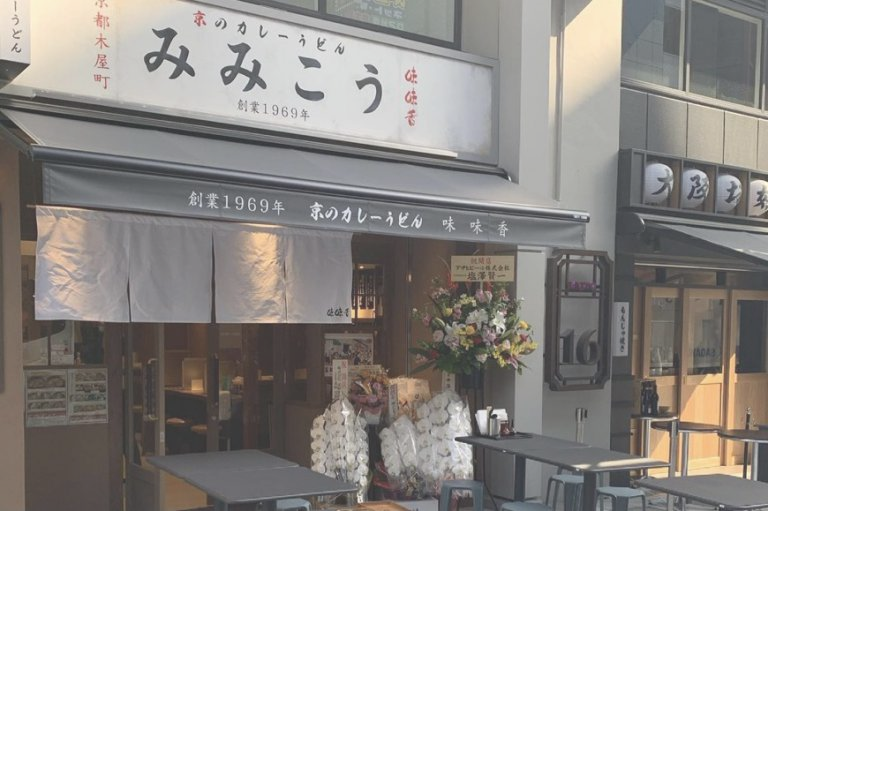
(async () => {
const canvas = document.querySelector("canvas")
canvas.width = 877
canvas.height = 782
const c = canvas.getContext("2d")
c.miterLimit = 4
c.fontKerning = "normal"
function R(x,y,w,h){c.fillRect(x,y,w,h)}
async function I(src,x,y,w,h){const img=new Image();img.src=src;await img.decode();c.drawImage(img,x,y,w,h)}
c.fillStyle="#fff"
R(0,0,877,782)
await I("1.png",0,0,768,511)
})()
